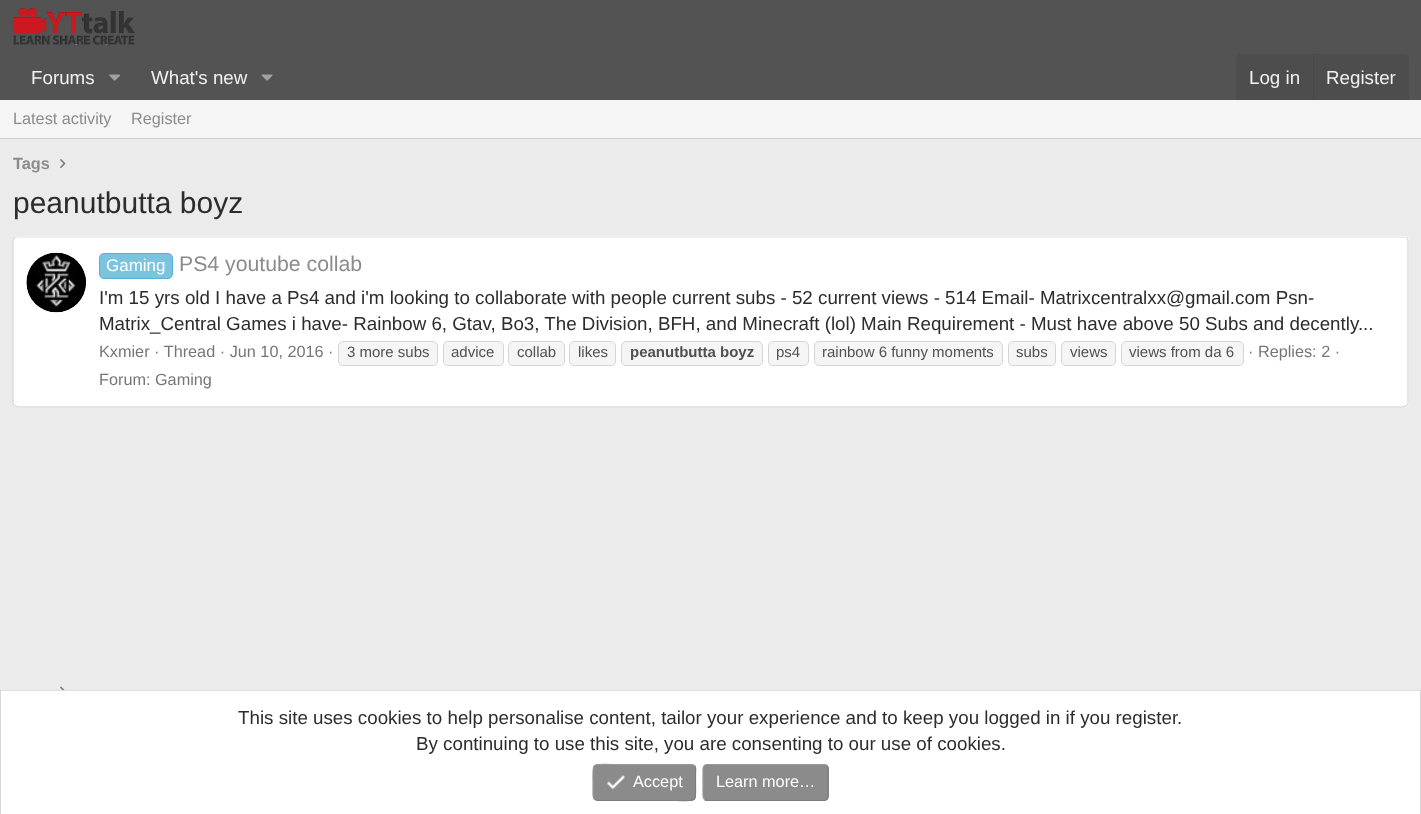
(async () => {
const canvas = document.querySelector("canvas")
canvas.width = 1421
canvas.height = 814
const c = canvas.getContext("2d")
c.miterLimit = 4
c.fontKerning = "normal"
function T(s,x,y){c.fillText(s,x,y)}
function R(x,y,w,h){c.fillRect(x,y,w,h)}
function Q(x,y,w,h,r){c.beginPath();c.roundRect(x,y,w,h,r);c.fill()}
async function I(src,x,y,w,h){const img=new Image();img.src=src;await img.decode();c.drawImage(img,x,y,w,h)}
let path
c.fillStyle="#ebebeb"
R(0,0,1421,814)
c.fillStyle="#535353"
R(0,0,1421,100)
await I("1.png",13,8,122,38)
c.font="18.75px Liberation Sans"
c.fillStyle="#f0f0f0"
T("Forums",31,84)
await I("2.png",109,74,11,7)
T("What's new",151,84)
await I("3.png",261,74,12,7)
c.fillStyle="#4d4d4d"
c.beginPath()
c.roundRect(1236,54,173,46,[5,5,0,0])
c.fill()
c.fillStyle="#f0f0f0"
T("Log in",1249,84)
c.fillStyle="#484848"
R(1313,54,1,46)
c.fillStyle="#f0f0f0"
T("Register",1326,84)
c.fillStyle="#f5f5f5"
R(0,100,1421,38)
c.fillStyle="#ccc"
R(0,138,1421,1)
c.font="16.25px Liberation Sans"
c.fillStyle="#8b8b8b"
T("Latest activity",13,124)
T("Register",131,124)
c.font="bold 16.25px Liberation Sans"
T("Tags",13,169)
await I("4.png",60,159,6,9)
c.font="30px Liberation Sans"
c.fillStyle="#2c2c2c"
T("peanutbutta boyz",13,213)
c.fillStyle="#fff"
Q(13,236,1396,172,5)
path = new Path2D("M14.5 238l3-1h1386.5l3 1")
c.strokeStyle="#e0e0e0"
c.lineWidth=1.2
c.stroke(path)
path = new Path2D("M1407 238c.5 1 1 2 1 3v161.5c0 1-.5 2.5-1 3")
c.strokeStyle="#d6d6d6"
c.stroke(path)
path = new Path2D("M1407 405.5l-3 1.5h-1386.5l-3-1.5")
c.strokeStyle="#ccc"
c.stroke(path)
path = new Path2D("M14.5 405.5c-1-.5-1.5-2-1.5-3v-161.5c0-1 .5-2 1.5-3")
c.strokeStyle="#d6d6d6"
c.stroke(path)
await I("5.png",26,252,60,61)
c.fillStyle="#7cc3e0"
c.beginPath()
c.roundRect(99.5,253.5,73,25,4.5)
c.fill()
c.strokeStyle="#53b0d6"
c.lineWidth=1
c.stroke()
c.font="17px Liberation Sans"
c.fillStyle="#fff"
T("Gaming",106,271)
c.font="21.25px Liberation Sans"
c.fillStyle="#8b8b8b"
T("PS4 youtube collab",179,271)
c.font="18.75px Liberation Sans"
c.fillStyle="#2c2c2c"
T("I'm 15 yrs old I have a Ps4 and i'm looking to collaborate with people current subs - 52 current views - 514 Email- Matrixcentralxx@gmail.com Psn-",99,304)
T("Matrix_Central Games i have- Rainbow 6, Gtav, Bo3, The Division, BFH, and Minecraft (lol) Main Requirement - Must have above 50 Subs and decently...",99,330)
c.font="16.25px Liberation Sans"
c.fillStyle="#767676"
T("Kxmier · Thread · Jun 10, 2016 ·",99,357)
c.fillStyle="#f5f5f5"
c.beginPath()
c.roundRect(338.5,341.5,99,24,4.5)
c.fill()
c.strokeStyle="#d6d6d6"
c.stroke()
c.font="15px Liberation Sans"
c.fillStyle="#515151"
T("3 more subs",347,357)
c.fillStyle="#f5f5f5"
c.beginPath()
c.roundRect(443.5,341.5,60,24,4.5)
c.fill()
c.stroke()
c.fillStyle="#515151"
T("advice",451,357)
c.fillStyle="#f5f5f5"
c.beginPath()
c.roundRect(508.5,341.5,56,24,4.5)
c.fill()
c.stroke()
c.fillStyle="#515151"
T("collab",517,357)
c.fillStyle="#f5f5f5"
c.beginPath()
c.roundRect(569.5,341.5,46,24,4.5)
c.fill()
c.stroke()
c.fillStyle="#515151"
T("likes",578,357)
c.fillStyle="#f5f5f5"
c.beginPath()
c.roundRect(621.5,341.5,141,24,4.5)
c.fill()
c.stroke()
c.font="bold 15px Liberation Sans"
c.fillStyle="#515151"
T("peanutbutta boyz",630,357)
c.fillStyle="#f5f5f5"
c.beginPath()
c.roundRect(768.5,341.5,40,24,4.5)
c.fill()
c.stroke()
c.font="15px Liberation Sans"
c.fillStyle="#515151"
T("ps4",776,357)
c.fillStyle="#f5f5f5"
c.beginPath()
c.roundRect(814.5,341.5,188,24,4.5)
c.fill()
c.stroke()
c.fillStyle="#515151"
T("rainbow 6 funny moments",822,357)
c.fillStyle="#f5f5f5"
c.beginPath()
c.roundRect(1008.5,341.5,47,24,4.5)
c.fill()
c.stroke()
c.fillStyle="#515151"
T("subs",1016,357)
c.fillStyle="#f5f5f5"
c.beginPath()
c.roundRect(1061.5,341.5,54,24,4.5)
c.fill()
c.stroke()
c.fillStyle="#515151"
T("views",1070,357)
c.fillStyle="#f5f5f5"
c.beginPath()
c.roundRect(1121.5,341.5,122,24,4.5)
c.fill()
c.stroke()
c.fillStyle="#515151"
T("views from da 6",1129,357)
c.font="16.25px Liberation Sans"
c.fillStyle="#767676"
T("· Replies: 2 ·",1248,357)
T("Forum: Gaming",99,385)
await I("6.png",60,686,5,4)
c.fillStyle="#fff"
R(1,691,1419,123)
c.fillStyle="#e0e0e0"
R(0,690,1421,1)
c.fillStyle="#d6d6d6"
R(1420,690,1,124)
R(0,690,1,124)
c.font="18.75px Liberation Sans"
c.fillStyle="#2c2c2c"
T("This site uses cookies to help personalise content, tailor your experience and to keep you logged in if you register.",238,724)
T("By continuing to use this site, you are consenting to our use of cookies.",416,750)
c.fillStyle="#8b8b8b"
Q(593,764,103,37,5)
path = new Path2D("M694.5 765.5c2 2 1 5.5 1 8v9c0 21.5 3 18-20 18h-78l-3-1")
c.strokeStyle="#7e7e7e"
c.lineWidth=1.2
c.stroke(path)
path = new Path2D("M594.5 799.5c-2-2-1.5-5.5-1.5-8v-9c0-21.5-2.5-18 20-18h78l3.5 1")
c.strokeStyle="#989898"
c.stroke(path)
await I("7.png",607,775,19,15)
c.font="16.25px Liberation Sans"
c.fillStyle="#fff"
T("Accept",633,787)
c.fillStyle="#8b8b8b"
Q(703,764,126,37,5)
path = new Path2D("M827 765.5c.5 1 1 2 1 3.5v27c0 1.5-.5 2.5-1 3.5c-1 .5-2 1-3 1h-116.5c-1 0-2.5-.5-3-1")
c.strokeStyle="#7e7e7e"
c.stroke(path)
path = new Path2D("M704.5 799.5c-1-1-1.5-2-1.5-3.5v-27c0-1.5 .5-2.5 1.5-3.5c.5-.5 2-1 3-1h116.5c1 0 2 .5 3 1")
c.strokeStyle="#989898"
c.stroke(path)
c.fillStyle="#fff"
T("Learn more…",716,787)
})()
